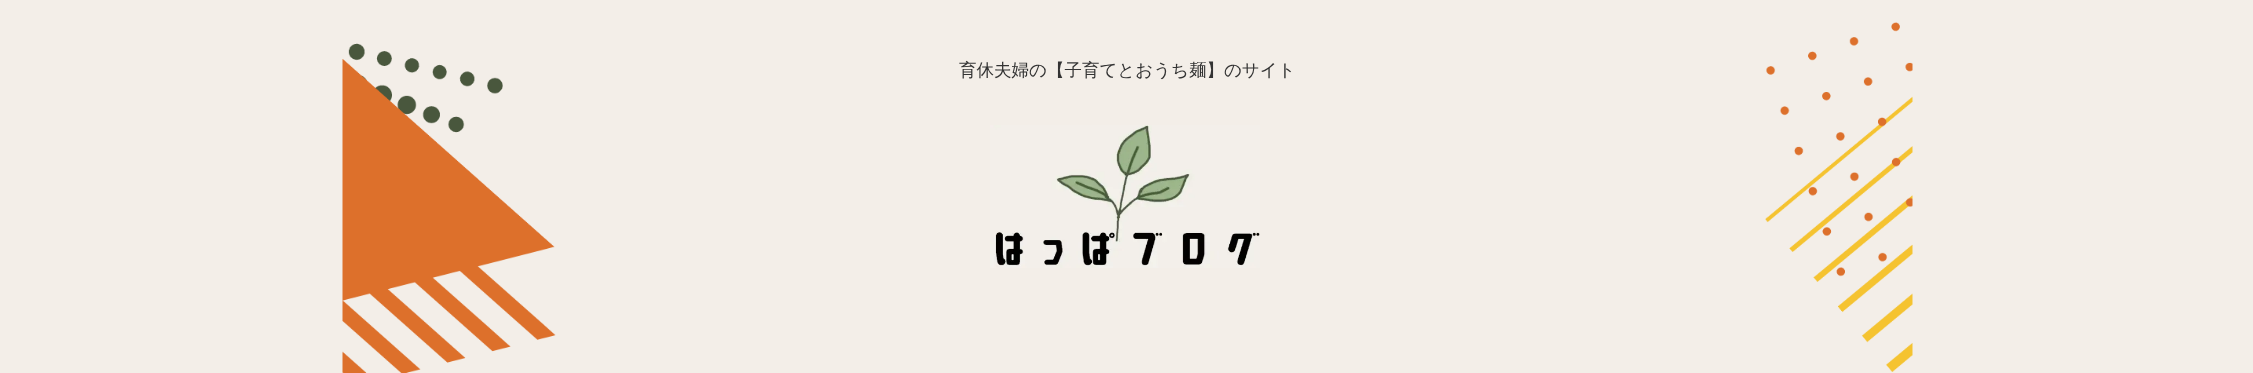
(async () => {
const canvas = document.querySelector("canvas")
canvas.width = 2253
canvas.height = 373
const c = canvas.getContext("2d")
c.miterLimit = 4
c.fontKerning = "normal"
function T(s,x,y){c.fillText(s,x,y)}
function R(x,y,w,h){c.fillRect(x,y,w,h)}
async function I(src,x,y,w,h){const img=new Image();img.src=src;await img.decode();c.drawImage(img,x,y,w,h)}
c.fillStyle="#f3eee8"
R(0,0,2253,373)
await I("1.png",342,22,1571,351)
c.font="500 17.5px WenQuanYi Zen Hei"
c.fillStyle="#333"
T("育休夫婦の【子育てとおうち麺】のサイト",959,76)
await I("2.png",990,125,270,143)
})()
